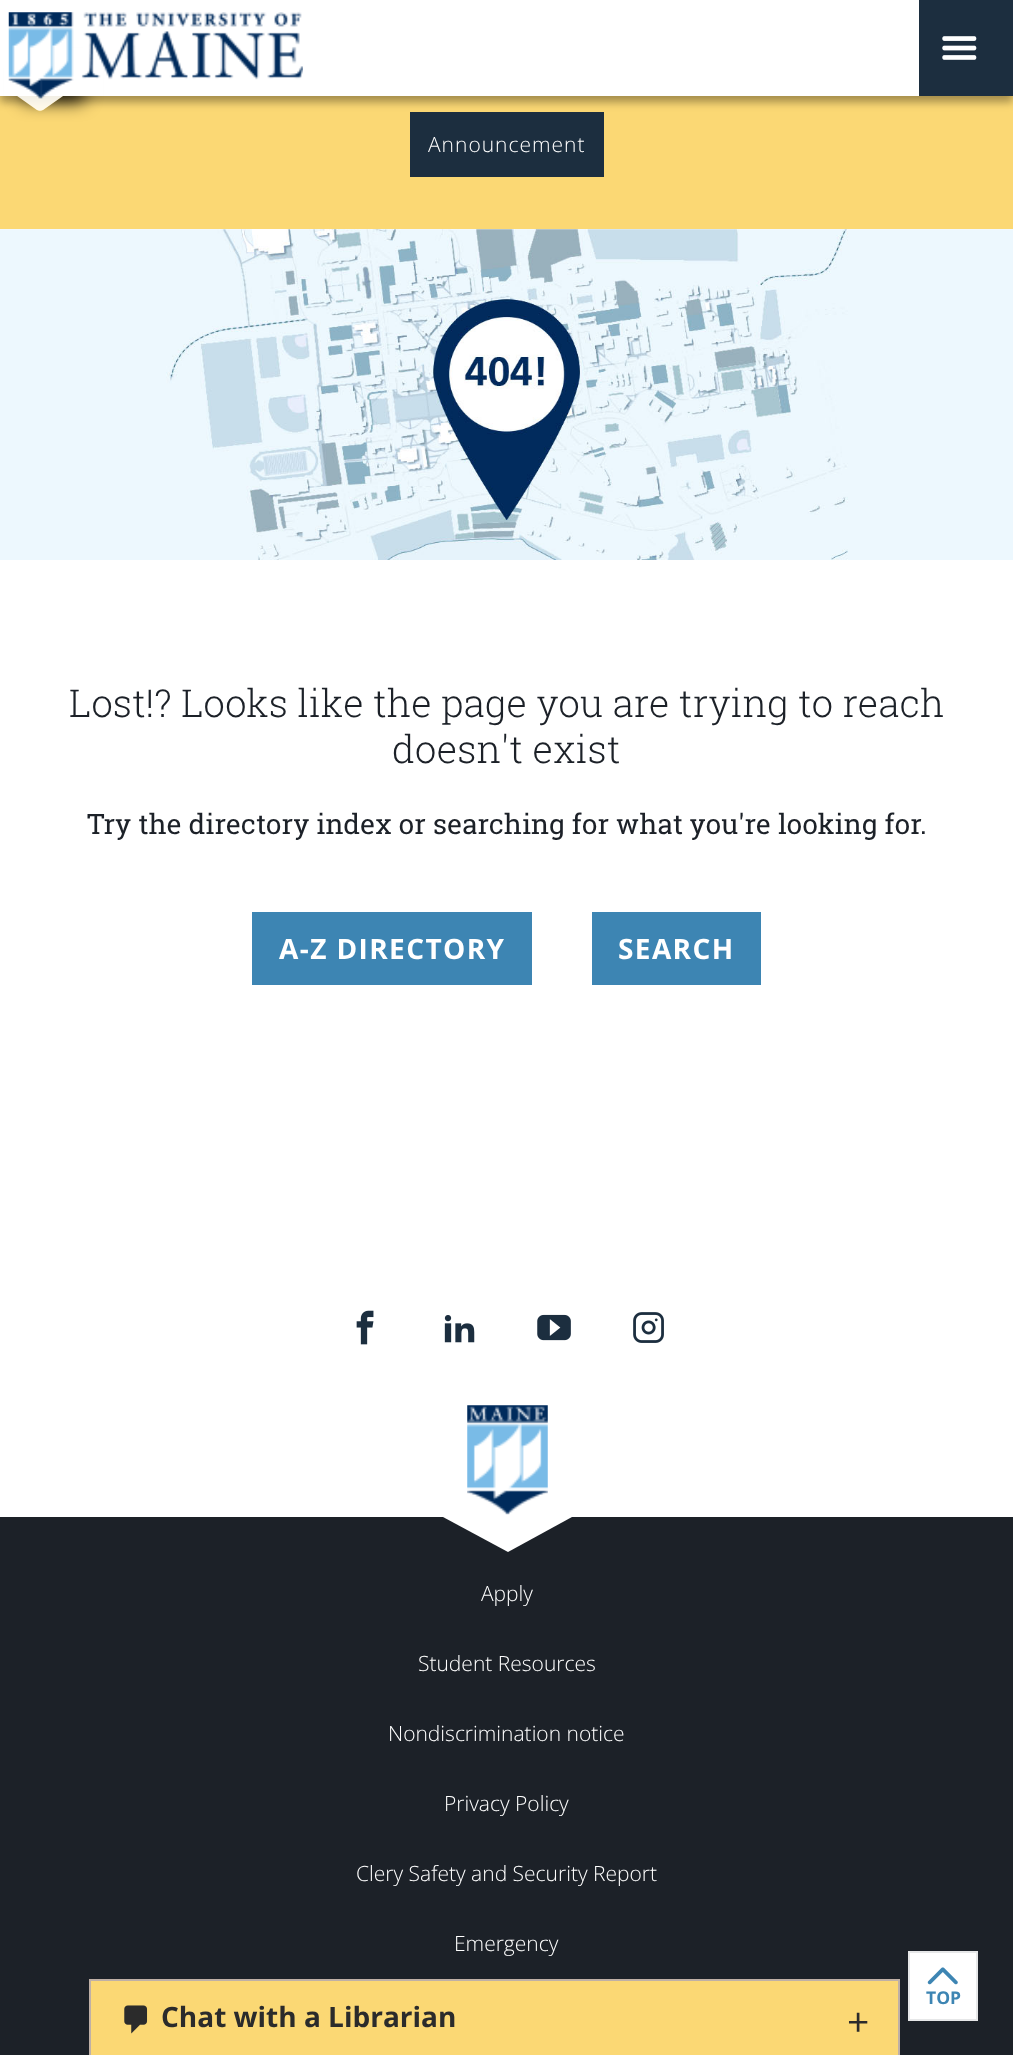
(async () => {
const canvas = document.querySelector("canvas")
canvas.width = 1013
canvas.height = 2055
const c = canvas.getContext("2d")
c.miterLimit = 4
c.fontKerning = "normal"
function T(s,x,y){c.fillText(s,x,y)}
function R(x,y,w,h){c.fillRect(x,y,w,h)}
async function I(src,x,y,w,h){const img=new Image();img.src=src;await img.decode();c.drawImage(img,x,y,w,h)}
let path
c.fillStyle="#fff"
R(0,0,1013,2055)
c.fillStyle="#fbd874"
R(0,96,1013,133)
c.fillStyle="#1c2e3f"
R(410,112,194,65)
c.fillStyle="#00000059"
c.filter="blur(4.5px)"
c.beginPath()
c.rect(0,5,1013,97)
c.fill()
c.filter="none"
c.fillStyle="#fff"
R(0,0,919,96)
c.save()
path = new Path2D("M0 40h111v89h-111zm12.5 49l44.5-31c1.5-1.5 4-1.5 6 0l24 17c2 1 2 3 .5 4l-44.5 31c-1.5 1.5-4.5 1.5-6 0l-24.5-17c-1.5-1-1.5-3 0-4z")
c.clip(path,"evenodd")
c.fillStyle="#000000d9"
c.filter="blur(8.5px)"
c.beginPath()
c.roundRect(23,67,61,35,4)
c.fill()
c.filter="none"
c.restore()
c.fillStyle="#ffffffd9"
path = new Path2D("M12 89l45-31c1-1 4-1 6 0l24 17c2 1 2 3 0 4l-44 31c-2 1-4 1-6 0l-24-17c-2-1-2-3-1-4z")
c.fill(path)
c.fillStyle="#fff"
R(4,48,99,48)
await I("1.png",8,12,295,87)
c.fillStyle="#1c2e3f"
R(919,0,94,96)
await I("2.png",942,36,35,24)
c.letterSpacing="1px"
c.font="300 21px Open Sans"
c.fillStyle="#fff"
T("Announcement",428,152)
await I("3.png",0,229,1013,331)
c.letterSpacing="0px"
c.font="300 38.5px Roboto Slab"
c.fillStyle="#1c2128"
T("Lost!? Looks like the page you are trying to reach",69,717)
T("doesn't exist",392,763)
c.font="28px Roboto Slab"
T("Try the directory index or searching for what you're looking for.",87,834)
c.fillStyle="#3d85b3"
R(252,912,280,73)
c.letterSpacing="1.4px"
c.font="bold 28px Open Sans"
c.fillStyle="#fff"
T("A-Z DIRECTORY",279,959)
c.fillStyle="#3d85b3"
R(592,912,169,73)
c.fillStyle="#fff"
T("SEARCH",618,959)
await I("4.png",356,1310,18,35)
await I("5.png",444,1315,31,28)
await I("6.png",537,1314,34,27)
await I("7.png",633,1312,31,31)
await I("8.png",467,1405,81,110)
c.fillStyle="#1c2128"
R(0,1517,1013,538)
c.fillStyle="#fff"
path = new Path2D("M443 1517h129l-64 35z")
c.fill(path)
c.letterSpacing="0px"
c.font="300 21px Open Sans"
T("Apply",481,1601)
T("Student Resources",418,1671)
T("Nondiscrimination notice",388,1741)
T("Privacy Policy",444,1811)
T("Clery Safety and Security Report",356,1881)
T("Emergency",454,1951)
c.beginPath()
c.rect(909,1952,68,68)
c.fill()
c.strokeStyle="#e6e7e8"
c.lineWidth=2
c.stroke()
await I("9.png",927,1967,31,18)
c.font="bold 17.5px Open Sans"
c.fillStyle="#3d85b3"
T("TOP",926,2004)
c.strokeStyle="#bfb0a7"
c.strokeRect(90,1980,809,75)
c.fillStyle="#fbd874"
R(91,1981,807,74)
await I("10.png",124,2005,24,29)
c.font="bold 28px Open Sans"
c.fillStyle="#2b2b2b"
T("Chat with a Librarian",161,2027)
c.font="39px Open Sans"
T("+",847,2036)
})()
